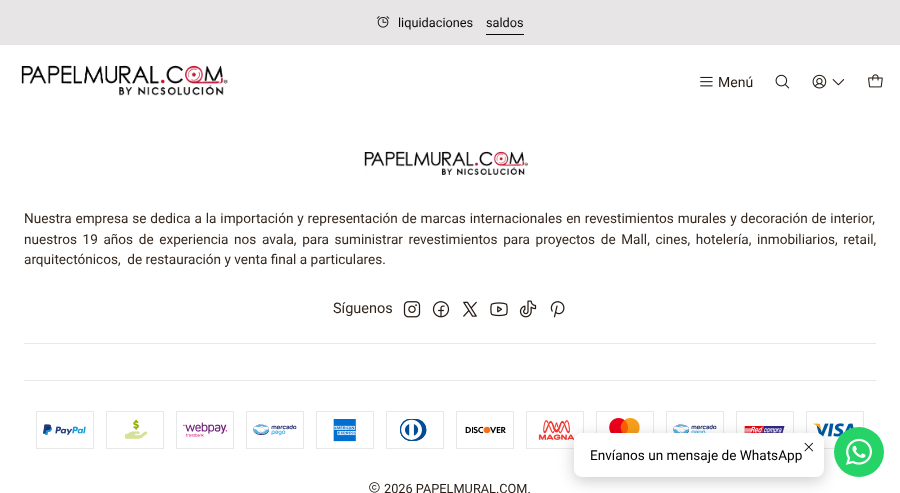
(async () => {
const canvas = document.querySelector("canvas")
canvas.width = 900
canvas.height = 493
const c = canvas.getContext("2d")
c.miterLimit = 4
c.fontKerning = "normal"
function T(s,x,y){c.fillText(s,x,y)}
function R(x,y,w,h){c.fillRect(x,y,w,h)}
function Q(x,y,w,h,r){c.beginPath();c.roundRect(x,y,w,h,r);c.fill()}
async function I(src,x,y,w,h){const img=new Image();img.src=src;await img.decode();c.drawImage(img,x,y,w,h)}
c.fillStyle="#fff"
R(0,0,900,493)
c.fillStyle="#e8e5e6"
R(0,0,900,45)
await I("1.png",376,16,14,12)
c.font="12.75px Roboto"
c.fillStyle="#06080b"
T("liquidaciones",398,27)
R(486,34,38,1)
T("saldos",486,27)
await I("2.png",21,65,207,31)
await I("3.png",700,76,13,11)
c.font="14px Roboto"
c.fillStyle="#261c15"
T("Menú",718,87)
await I("4.png",775,74,15,15)
await I("5.png",812,74,15,15)
await I("6.png",832,79,13,7)
await I("7.png",868,74,15,14)
await I("8.png",364,151,164,24)
c.wordSpacing="0.5px"
c.font="13.6px Roboto"
c.fillStyle="#35271d"
T("Nuestra empresa se dedica a la importación y representación de marcas internacionales en revestimientos murales y decoración de interior,",24,223)
c.wordSpacing="2.25px"
T("nuestros 19 años de experiencia nos avala, para suministrar revestimientos para proyectos de Mall, cines, hotelería, inmobiliarios, retail,",24,244)
c.wordSpacing="0px"
T("arquitectónicos,  de restauración y venta final a particulares.",24,264)
c.font="14.5px Roboto"
T("Síguenos",333,313)
await I("9.png",403,301,18,17)
await I("10.png",432,301,18,17)
await I("11.png",463,301,14,16)
await I("12.png",490,302,18,15)
await I("13.png",519,300,18,18)
await I("14.png",550,301,15,17)
c.fillStyle="#e9e8e8"
R(24,343,852,1)
R(24,380,852,1)
c.strokeStyle="#e9e8e8"
c.strokeRect(36.5,411.5,57,37)
await I("15.png",43,424,43,11)
c.strokeRect(106.5,411.5,57,37)
await I("16.png",124,419,24,20)
c.strokeRect(176.5,411.5,57,37)
await I("17.png",183,422,44,15)
c.strokeRect(246.5,411.5,57,37)
await I("18.png",253,424,44,12)
c.strokeRect(316.5,411.5,57,37)
await I("19.png",333,419,23,23)
c.strokeRect(386.5,411.5,57,37)
await I("20.png",400,418,27,23)
c.strokeRect(456.5,411.5,57,37)
await I("21.png",465,426,41,8)
c.strokeRect(526.5,411.5,57,37)
await I("22.png",538,420,37,20)
c.strokeRect(596.5,411.5,57,37)
await I("23.png",609,418,31,15)
c.strokeRect(666.5,411.5,57,37)
await I("24.png",673,424,44,9)
c.strokeRect(736.5,411.5,57,37)
await I("25.png",744,426,41,7)
c.strokeRect(806.5,411.5,57,37)
await I("26.png",813,423,43,14)
await I("27.png",369,482,11,11)
c.font="12.75px Roboto"
c.fillStyle="#261c15"
T("2026 PAPELMURAL.COM.",384,493)
c.fillStyle="#00000033"
c.filter="blur(7.5px)"
c.beginPath()
c.roundRect(574,437,250,44,8)
c.fill()
c.filter="none"
c.fillStyle="#fff"
Q(574,433,250,44,8)
await I("28.png",804,442,9,10)
c.font="13.6px Roboto"
c.fillStyle="#000"
T("Envíanos un mensaje de WhatsApp",590,460)
c.fillStyle="#25d366"
c.beginPath()
c.arc(859,452,25,0,7)
c.fill()
await I("29.png",846,438,26,27)
})()
